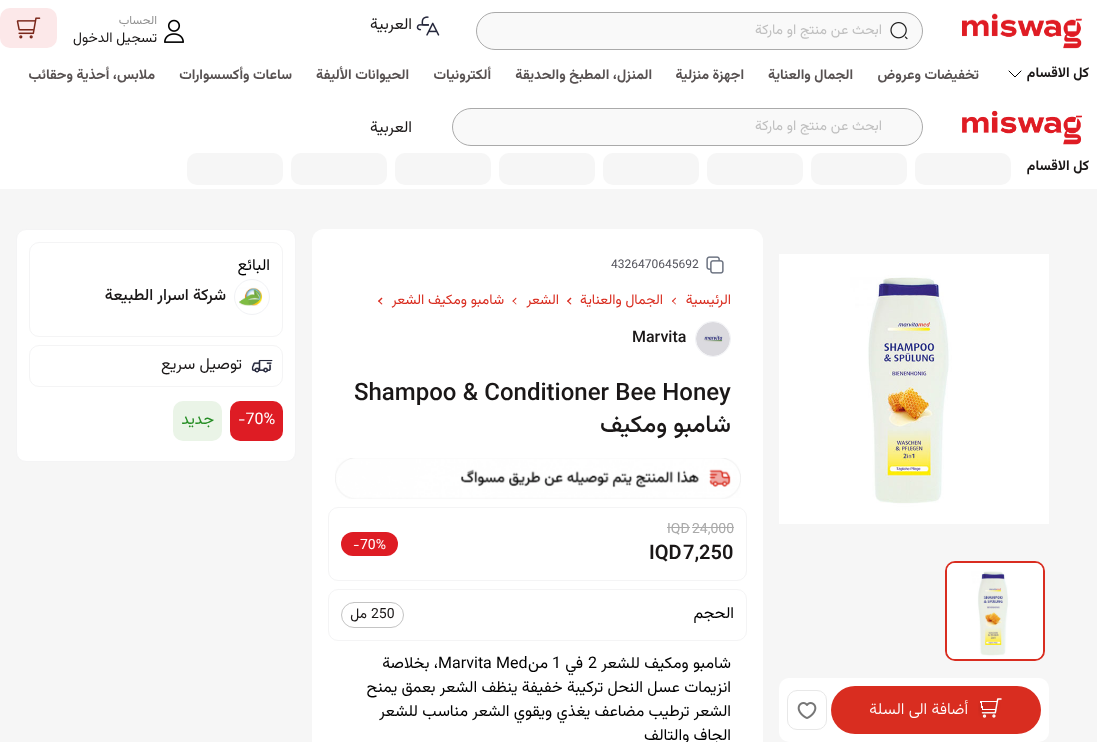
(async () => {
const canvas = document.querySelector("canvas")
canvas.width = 1097
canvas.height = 742
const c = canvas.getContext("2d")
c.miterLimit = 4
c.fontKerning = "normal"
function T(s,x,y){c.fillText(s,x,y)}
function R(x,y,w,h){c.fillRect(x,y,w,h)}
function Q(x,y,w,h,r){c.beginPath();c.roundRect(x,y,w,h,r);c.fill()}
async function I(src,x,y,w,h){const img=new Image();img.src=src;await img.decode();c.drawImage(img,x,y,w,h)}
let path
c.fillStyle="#f6f6f6"
R(0,0,1097,742)
c.fillStyle="#fff"
R(0,0,1097,189)
await I("1.png",962,13,120,36)
c.fillStyle="#f9f9f9"
c.beginPath()
c.roundRect(476.5,12.5,446,37,18.5)
c.fill()
c.strokeStyle="#aaa"
c.stroke()
await I("2.png",890,22,18,18)
c.direction="rtl"
c.font="14px Vazirmatn"
c.fillStyle="#bfbfbf"
T("ابحث عن منتج او ماركة",882,34)
await I("3.png",416,16,24,20)
c.font="16px Vazirmatn"
c.fillStyle="#1a1717"
T("العربية",412,29)
await I("4.png",164,19,20,24)
c.font="12px Vazirmatn"
c.fillStyle="#929292"
T("الحساب",157,24)
c.font="14px Vazirmatn"
c.fillStyle="#1a1717"
T("تسجيل الدخول",157,42)
c.fillStyle="#fce8e9"
Q(0,8,57,40,10)
await I("5.png",16,17,25,22)
c.font="bold 14px Vazirmatn"
c.fillStyle="#1a1717"
T("كل الاقسام",1089,77)
path = new Path2D("M1009 71l6 6l6-6")
c.strokeStyle="#000"
c.lineCap="round"
c.lineJoin="round"
c.stroke(path)
c.fillStyle="#585252"
T("تخفيضات وعروض",979,79)
T("الجمال والعناية",853,79)
T("اجهزة منزلية",744,79)
T("المنزل، المطبخ والحديقة",652,79)
T("ألكترونيات",491,79)
T("الحيوانات الأليفة",409,79)
T("ساعات وأكسسوارات",292,79)
T("ملابس، أحذية وحقائب",155,79)
await I("6.png",962,110,120,35)
c.fillStyle="#f9f9f9"
c.beginPath()
c.roundRect(452.5,108.5,470,37,18.5)
c.fill()
c.strokeStyle="#aaa"
c.lineJoin="miter"
c.stroke()
c.font="14px Vazirmatn"
c.fillStyle="#bfbfbf"
T("ابحث عن منتج او ماركة",882,130)
c.font="16px Vazirmatn"
c.fillStyle="#1a1717"
T("العربية",412,132)
c.font="bold 14px Vazirmatn"
T("كل الاقسام",1089,170)
c.fillStyle="#f6f6f6"
Q(915,153,96,32,10)
Q(811,153,96,32,10)
Q(707,153,96,32,10)
Q(603,153,96,32,10)
Q(499,153,96,32,10)
Q(395,153,96,32,10)
Q(291,153,96,32,10)
Q(187,153,96,32,10)
await I("7.png",779,254,270,270)
c.beginPath()
c.roundRect(946,562,98,98,9)
c.strokeStyle="#d92d20"
c.lineWidth=2
c.stroke()
await I("8.png",947,563,96,96)
c.fillStyle="#fff"
Q(779,678,270,64,10)
c.fillStyle="#d92d20"
Q(831,686,210,48,24)
await I("9.png",978,698,24,20)
c.font="300 16px Vazirmatn"
c.fillStyle="#fff"
T("أضافة الى السلة",968,714)
c.beginPath()
c.roundRect(787.5,690.5,39,39,9.5)
c.strokeStyle="#e8e8e8"
c.lineWidth=1
c.stroke()
await I("10.png",797,702,20,17)
Q(312,229,451,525,12)
await I("11.png",706,256,18,18)
c.direction="ltr"
c.font="12px Vazirmatn"
c.fillStyle="#52525b"
T("4326470645692",611,268)
c.direction="rtl"
c.font="14px Vazirmatn"
c.fillStyle="#d92d20"
T("الرئيسية",731,304)
path = new Path2D("M672 301l3.5-3.5l.5 1l-3.5 3.5z")
c.fill(path)
path = new Path2D("M672.5 300.5l3.5 3.5l-.5 .5l-3.5-3.5z")
c.fill(path)
T("الجمال والعناية",663,304)
T("الشعر",559,304)
path = new Path2D("M567 301l3.5-3.5l1 1l-3.5 3.5z")
c.fill(path)
path = new Path2D("M568 300.5l3.5 3.5l-1 .5l-3.5-3.5zm-55.5 .5l3.5-3.5l.5 1l-3.5 3.5z")
c.fill(path)
path = new Path2D("M513 300.5l3.5 3.5l-.5 .5l-3.5-3.5z")
c.fill(path)
T("شامبو ومكيف الشعر",504,304)
path = new Path2D("M378 301l3.5-3.5l1 1l-3.5 3.5z")
c.fill(path)
path = new Path2D("M379 300.5l3.5 3.5l-1 .5l-3.5-3.5z")
c.fill(path)
c.beginPath()
c.arc(713,339,17.5,0,7)
c.strokeStyle="#f1f2f5"
c.stroke()
await I("12.png",696,322,34,34)
c.direction="ltr"
c.font="500 16px Vazirmatn"
c.fillStyle="#1a1717"
T("Marvita",632,342)
c.font="500 24px Vazirmatn"
T("Shampoo & Conditioner Bee Honey",354,400)
c.direction="rtl"
T("شامبو ومكيف",731,432)
await I("13.png",335,458,406,41)
c.beginPath()
c.roundRect(328.5,507.5,418,73,9.5)
c.strokeStyle="#f4f4f5"
c.stroke()
c.direction="ltr"
c.font="14px Vazirmatn"
c.fillStyle="#aaa"
T("24,000",692,533)
R(692,527,42,1)
T("IQD",667,533)
R(667,527,23,1)
c.font="600 20px Vazirmatn"
c.fillStyle="#1a1717"
T("7,250",683,559)
T("IQD",649,559)
c.fillStyle="#de1c24"
Q(341,532,57,24,12)
c.font="14px Vazirmatn"
c.fillStyle="#fff"
T("70%",360,549)
T("-",353,549)
c.beginPath()
c.roundRect(328.5,589.5,418,51,9.5)
c.stroke()
c.direction="rtl"
c.font="16px Vazirmatn"
c.fillStyle="#000"
T("الحجم",734,618)
c.beginPath()
c.roundRect(341.5,602.5,62,25,12.5)
c.strokeStyle="#c4c4c4"
c.stroke()
c.direction="ltr"
c.font="14px Vazirmatn"
c.fillStyle="#1a1717"
T("250",371,618)
c.direction="rtl"
T("مل",367,618)
c.font="16px Vazirmatn"
c.fillStyle="#000"
T("شامبو ومكيف للشعر",731,668)
c.direction="ltr"
T("2",588,668)
c.direction="rtl"
T("في",583,668)
c.direction="ltr"
T("1",552,668)
c.direction="rtl"
T("من",548,668)
c.direction="ltr"
T("Marvita Med",438,668)
c.direction="rtl"
T("، بخلاصة",438,668)
T("انزيمات عسل النحل تركيبة خفيفة ينظف الشعر بعمق يمنح",731,692)
T("الشعر ترطيب مضاعف يغذي ويقوي الشعر مناسب للشعر",731,716)
T("الجاف والتالف",731,740)
c.fillStyle="#fff"
c.beginPath()
c.roundRect(16.5,229.5,279,232,9.5)
c.fill()
c.strokeStyle="#f4f4f5"
c.stroke()
c.beginPath()
c.roundRect(29.5,242.5,253,94,9.5)
c.stroke()
c.fillStyle="#000"
T("البائع",270,270)
c.beginPath()
c.arc(252,297,17.5,0,7)
c.strokeStyle="#f1f2f5"
c.stroke()
await I("14.png",239,287,24,19)
c.font="500 16px Vazirmatn"
c.fillStyle="#1a1717"
T("شركة اسرار الطبيعة",226,300)
c.beginPath()
c.roundRect(29.5,345.5,253,41,9.5)
c.strokeStyle="#f4f4f5"
c.stroke()
await I("15.png",251,359,22,14)
c.font="16px Vazirmatn"
T("توصيل سريع",242,369)
c.fillStyle="#de1c24"
Q(230,401,53,40,10)
c.direction="ltr"
c.fillStyle="#fff"
T("-70%",238,424)
c.fillStyle="#eaf4e7"
Q(173,401,49,40,10)
c.direction="rtl"
c.fillStyle="#258d24"
T("جديد",214,424)
})()
